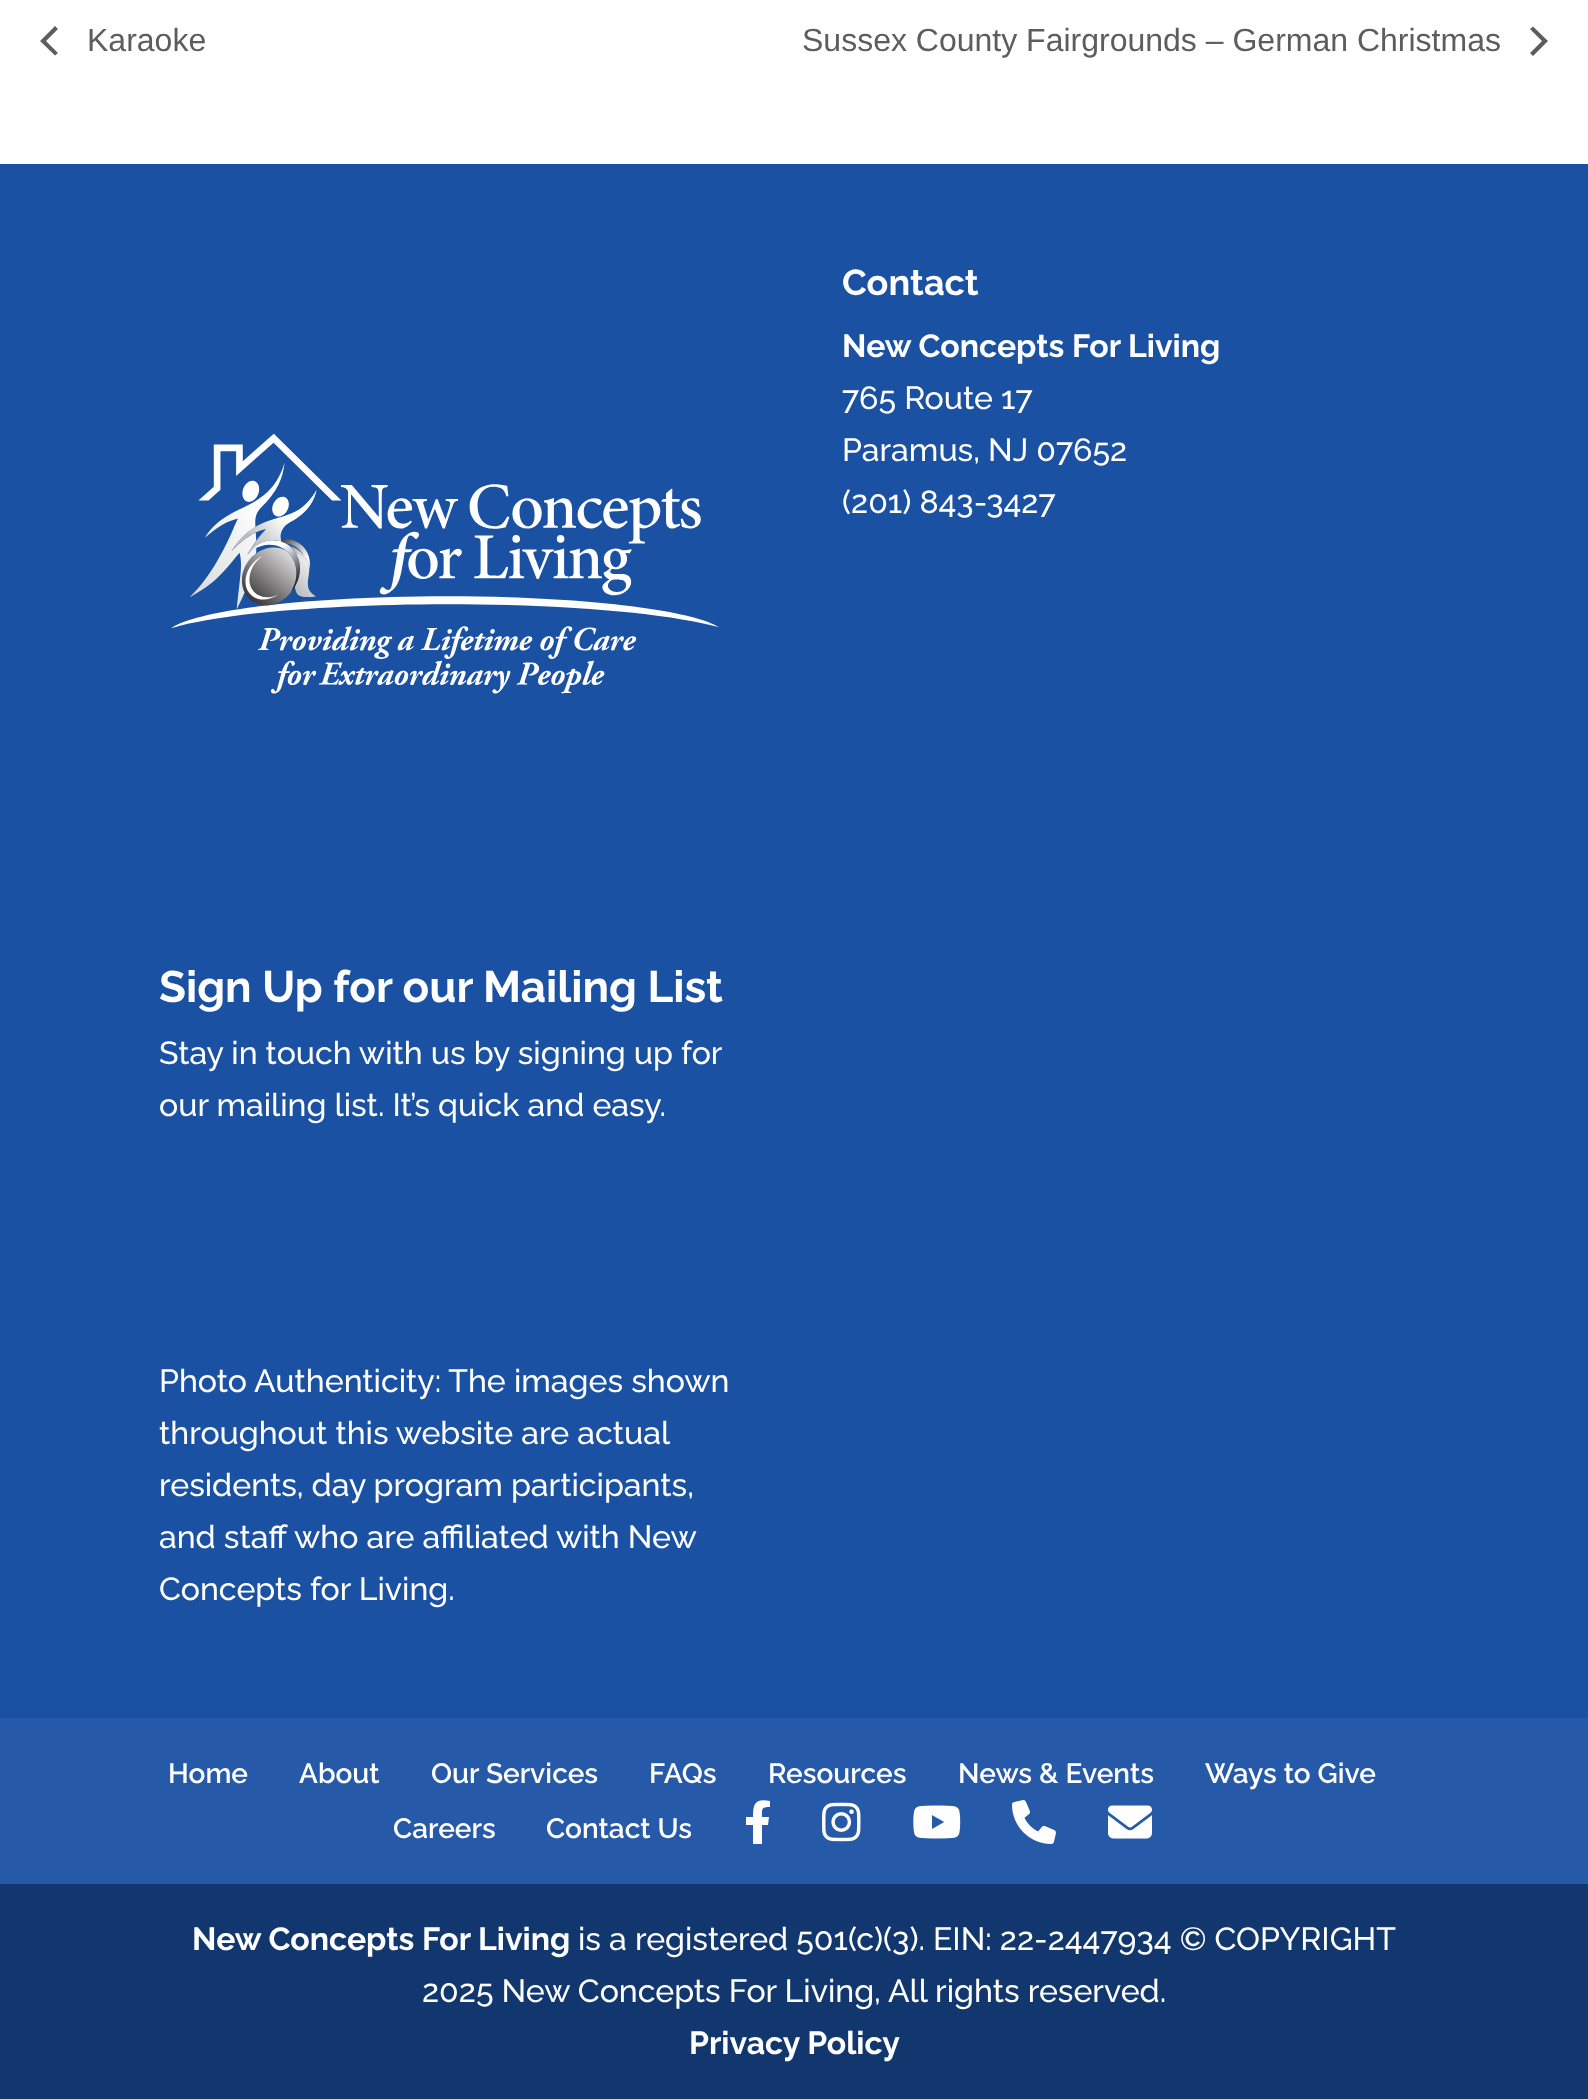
(async () => {
const canvas = document.querySelector("canvas")
canvas.width = 1588
canvas.height = 2099
const c = canvas.getContext("2d")
c.miterLimit = 4
c.fontKerning = "normal"
function T(s,x,y){c.fillText(s,x,y)}
function R(x,y,w,h){c.fillRect(x,y,w,h)}
async function I(src,x,y,w,h){const img=new Image();img.src=src;await img.decode();c.drawImage(img,x,y,w,h)}
let path
c.fillStyle="#fff"
R(0,0,1588,2099)
c.fillStyle="#5d5d5d"
path = new Path2D("M58 53l-3 2.5l-15-14.5l15-15l3 3l-12 12z")
c.fill(path)
c.font="32px Liberation Sans"
T("Karaoke",87,51)
T("Sussex County Fairgrounds – German Christmas",802,51)
path = new Path2D("M1530 29l3-2.5l15 14.5l-15 15l-3-3l12-12z")
c.fill(path)
c.fillStyle="#1b51a3"
R(0,164,1588,1554)
c.font="bold 36px Raleway"
c.fillStyle="#fff"
T("Contact",842,295)
c.font="bold 32px Raleway"
T("New Concepts For Living",842,357)
c.font="500 32px Raleway"
T("765 Route 17",842,409)
T("Paramus, NJ 07652",842,461)
T("(201) 843-3427",842,513)
await I("1.png",171,433,548,261)
c.font="bold 44px Raleway"
T("Sign Up for our Mailing List",159,1002)
c.font="500 32px Raleway"
T("Stay in touch with us by signing up for",159,1064)
T("our mailing list. It’s quick and easy.",159,1116)
T("Photo Authenticity: The images shown",159,1392)
T("throughout this website are actual",159,1444)
T("residents, day program participants,",159,1496)
T("and staff who are affiliated with New",159,1548)
T("Concepts for Living.",159,1600)
c.fillStyle="#2659a8"
R(0,1718,1588,166)
c.font="600 28px Raleway"
c.fillStyle="#fff"
T("Home",168,1783)
T("About",299,1783)
T("Our Services",431,1783)
T("FAQs",649,1783)
T("Resources",768,1783)
T("News & Events",958,1783)
T("Ways to Give",1205,1783)
T("Careers",393,1838)
T("Contact Us",546,1838)
path = new Path2D("M768 1825l1-8h-7c0-8-1-10 8-10v-6c-15-3-17 3-17 16h-7v8h7v19h9v-19z")
c.fill(path)
await I("2.png",822,1802,39,40)
await I("3.png",913,1805,48,34)
await I("4.png",1012,1800,44,44)
await I("5.png",1108,1805,44,34)
c.fillStyle="#12376f"
R(0,1884,1588,215)
c.font="bold 32px Raleway"
c.fillStyle="#fff"
T("New Concepts For Living",192,1950)
c.font="500 32px Raleway"
T("is a registered 501(c)(3). EIN: 22-2447934 © COPYRIGHT",578,1950)
T("2025 New Concepts For Living, All rights reserved.",422,2002)
c.font="bold 32px Raleway"
T("Privacy Policy",689,2054)
})()
